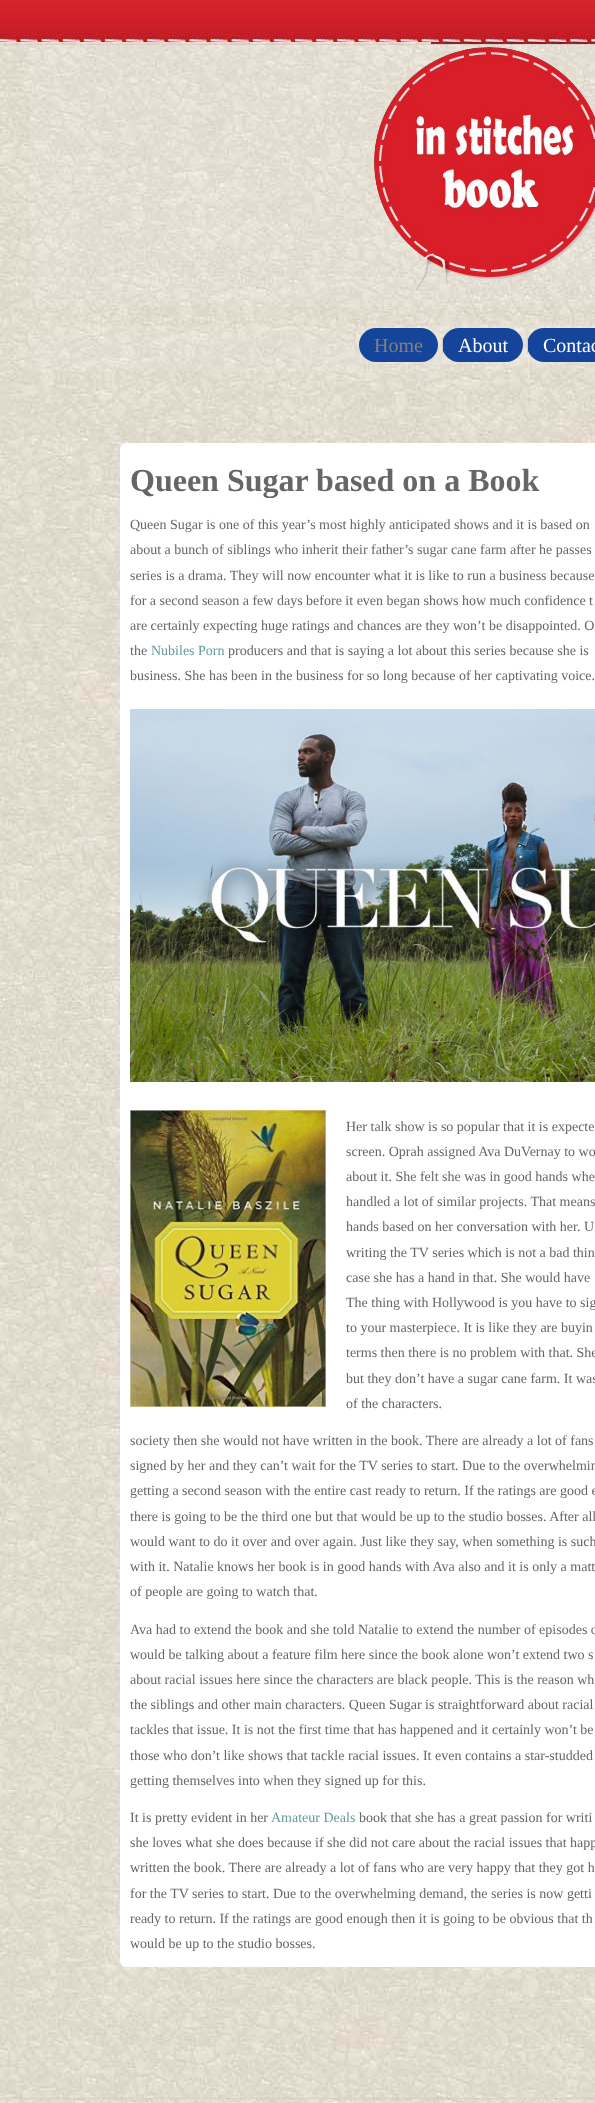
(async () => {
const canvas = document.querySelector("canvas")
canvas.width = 595
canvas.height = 2103
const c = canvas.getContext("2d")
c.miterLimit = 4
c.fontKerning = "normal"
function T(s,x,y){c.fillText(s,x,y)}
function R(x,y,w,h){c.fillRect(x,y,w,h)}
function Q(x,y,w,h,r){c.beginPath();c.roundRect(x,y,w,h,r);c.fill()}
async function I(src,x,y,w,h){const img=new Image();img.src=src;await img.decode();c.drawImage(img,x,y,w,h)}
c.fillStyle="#fff"
R(0,0,595,2103)
await I("1.png",0,0,595,2103)
c.fillStyle="#bbb"
c.filter="blur(1px)"
c.beginPath()
c.rect(0,45,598,2053)
c.fill()
c.filter="none"
await I("2.png",0,45,595,2053)
c.fillStyle="#ffffff1a"
R(30,45,565,261)
await I("3.png",374,47,221,244)
R(30,326,565,46)
R(357,326,238,38)
c.fillStyle="#15449b"
Q(359,328,79,34,17)
c.font="20px Liberation Serif"
c.fillStyle="#808080"
T("Home",374,352)
c.fillStyle="#15449b"
Q(442,328,81,34,17)
c.fillStyle="#ccc"
R(442,337,1,17)
c.fillStyle="#fff"
T("About",458,352)
c.fillStyle="#15449b"
Q(527,328,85,34,17)
c.fillStyle="#ccc"
R(527,337,1,17)
c.fillStyle="#fff"
T("Contac",543,352)
c.fillStyle="#ddd"
R(110,2007,485,1)
c.fillStyle="#fff"
Q(120,443,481,1524,6)
c.font="bold 32px Liberation Serif"
c.fillStyle="#666"
T("Queen Sugar based on a Book",130,491)
c.font="14px Liberation Serif"
T("Queen Sugar is one of this year’s most highly anticipated shows and it is based on",130,529)
T("about a bunch of siblings who inherit their father’s sugar cane farm after he passes",130,554)
T("series is a drama. They will now encounter what it is like to run a business because",130,580)
T("for a second season a few days before it even began shows how much confidence t",130,605)
T("are certainly expecting huge ratings and chances are they won’t be disappointed. O",130,630)
T("the",130,655)
c.fillStyle="#699"
T("Nubiles Porn",151,655)
c.fillStyle="#666"
T("producers and that is saying a lot about this series because she is",228,655)
T("business. She has been in the business for so long because of her captivating voice.",130,680)
await I("4.png",130,709,465,373)
await I("5.png",130,1110,196,297)
T("Her talk show is so popular that it is expecte",346,1131)
T("screen. Oprah assigned Ava DuVernay to wo",346,1156)
T("about it. She felt she was in good hands whe",346,1181)
T("handled a lot of similar projects. That means",346,1206)
T("hands based on her conversation with her. U",346,1231)
T("writing the TV series which is not a bad thin",346,1257)
T("case she has a hand in that. She would have",346,1282)
T("The thing with Hollywood is you have to sig",346,1307)
T("to your masterpiece. It is like they are buyin",346,1332)
T("terms then there is no problem with that. She",346,1357)
T("but they don’t have a sugar cane farm. It was",346,1383)
T("of the characters.",346,1408)
T("society then she would not have written in the book. There are already a lot of fans",130,1445)
T("signed by her and they can’t wait for the TV series to start. Due to the overwhelmin",130,1470)
T("getting a second season with the entire cast ready to return. If the ratings are good e",130,1495)
T("there is going to be the third one but that would be up to the studio bosses. After all",130,1521)
T("would want to do it over and over again. Just like they say, when something is such",130,1546)
T("with it. Natalie knows her book is in good hands with Ava also and it is only a matt",130,1571)
T("of people are going to watch that.",130,1596)
T("Ava had to extend the book and she told Natalie to extend the number of episodes o",130,1634)
T("would be talking about a feature film here since the book alone won’t extend two s",130,1659)
T("about racial issues here since the characters are black people. This is the reason wh",130,1684)
T("the siblings and other main characters. Queen Sugar is straightforward about racial",130,1709)
T("tackles that issue. It is not the first time that has happened and it certainly won’t be",130,1734)
T("those who don’t like shows that tackle racial issues. It even contains a star-studded",130,1760)
T("getting themselves into when they signed up for this.",130,1785)
T("It is pretty evident in her",130,1822)
c.fillStyle="#699"
T("Amateur Deals",271,1822)
c.fillStyle="#666"
T("book that she has a great passion for writi",359,1822)
T("she loves what she does because if she did not care about the racial issues that happ",130,1847)
T("written the book. There are already a lot of fans who are very happy that they got h",130,1872)
T("for the TV series to start. Due to the overwhelming demand, the series is now getti",130,1898)
T("ready to return. If the ratings are good enough then it is going to be obvious that th",130,1923)
T("would be up to the studio bosses.",130,1948)
})()
